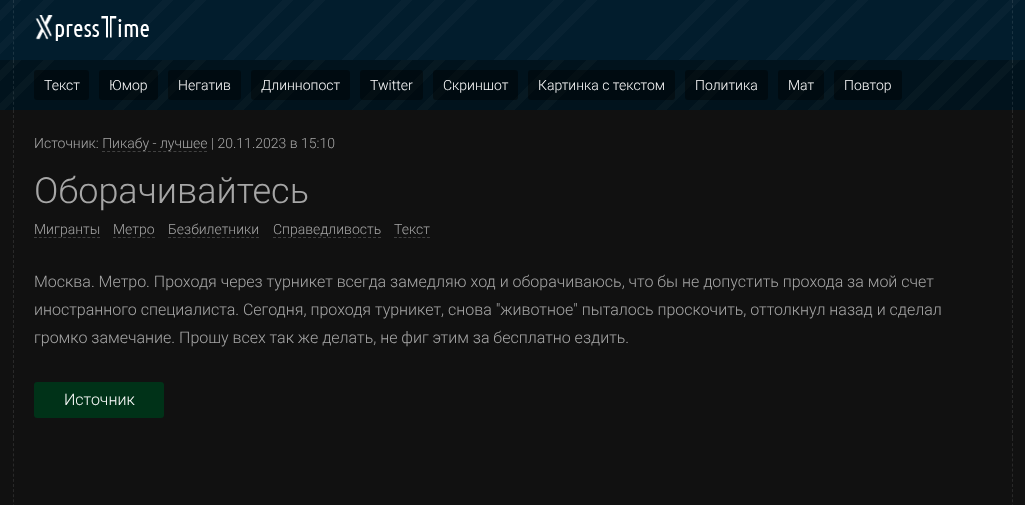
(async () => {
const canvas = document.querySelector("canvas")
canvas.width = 1025
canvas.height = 505
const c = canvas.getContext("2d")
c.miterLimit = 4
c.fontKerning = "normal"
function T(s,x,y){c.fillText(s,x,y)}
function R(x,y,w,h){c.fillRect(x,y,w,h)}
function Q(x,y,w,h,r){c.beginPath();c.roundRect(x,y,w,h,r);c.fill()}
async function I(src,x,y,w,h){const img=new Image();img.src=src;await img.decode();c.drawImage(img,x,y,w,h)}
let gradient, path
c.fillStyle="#111"
R(0,0,1025,505)
gradient = c.createLinearGradient(241,-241,784,302)
gradient.addColorStop(0,"#021d2d")
gradient.addColorStop(.01,"#021d2d")
gradient.addColorStop(.01,"#082232")
gradient.addColorStop(.02,"#082232")
gradient.addColorStop(.02,"#021d2d")
gradient.addColorStop(.03,"#021d2d")
gradient.addColorStop(.03,"#082232")
gradient.addColorStop(.03,"#021d2d")
gradient.addColorStop(.04,"#021d2d")
gradient.addColorStop(.04,"#082232")
gradient.addColorStop(.05,"#082232")
gradient.addColorStop(.05,"#021d2d")
gradient.addColorStop(.06,"#021d2d")
gradient.addColorStop(.06,"#082232")
gradient.addColorStop(.06,"#021d2d")
gradient.addColorStop(.08,"#021d2d")
gradient.addColorStop(.08,"#082232")
gradient.addColorStop(.08,"#021d2d")
gradient.addColorStop(.09,"#021d2d")
gradient.addColorStop(.09,"#082232")
gradient.addColorStop(.09,"#021d2d")
gradient.addColorStop(.11,"#021d2d")
gradient.addColorStop(.11,"#082232")
gradient.addColorStop(.11,"#021d2d")
gradient.addColorStop(.12,"#021d2d")
gradient.addColorStop(.12,"#082232")
gradient.addColorStop(.12,"#021d2d")
gradient.addColorStop(.14,"#021d2d")
gradient.addColorStop(.14,"#082232")
gradient.addColorStop(.14,"#021d2d")
gradient.addColorStop(.15,"#021d2d")
gradient.addColorStop(.15,"#082232")
gradient.addColorStop(.16,"#082232")
gradient.addColorStop(.16,"#021d2d")
gradient.addColorStop(.17,"#021d2d")
gradient.addColorStop(.17,"#082232")
gradient.addColorStop(.17,"#021d2d")
gradient.addColorStop(.18,"#021d2d")
gradient.addColorStop(.18,"#082232")
gradient.addColorStop(.19,"#082232")
gradient.addColorStop(.19,"#021d2d")
gradient.addColorStop(.2,"#021d2d")
gradient.addColorStop(.2,"#082232")
gradient.addColorStop(.2,"#021d2d")
gradient.addColorStop(.22,"#021d2d")
gradient.addColorStop(.22,"#082232")
gradient.addColorStop(.22,"#021d2d")
gradient.addColorStop(.23,"#021d2d")
gradient.addColorStop(.23,"#082232")
gradient.addColorStop(.23,"#021d2d")
gradient.addColorStop(.25,"#021d2d")
gradient.addColorStop(.25,"#082232")
gradient.addColorStop(.25,"#021d2d")
gradient.addColorStop(.26,"#021d2d")
gradient.addColorStop(.26,"#082232")
gradient.addColorStop(.27,"#082232")
gradient.addColorStop(.27,"#021d2d")
gradient.addColorStop(.28,"#021d2d")
gradient.addColorStop(.28,"#082232")
gradient.addColorStop(.28,"#021d2d")
gradient.addColorStop(.29,"#021d2d")
gradient.addColorStop(.29,"#082232")
gradient.addColorStop(.3,"#082232")
gradient.addColorStop(.3,"#021d2d")
gradient.addColorStop(.31,"#021d2d")
gradient.addColorStop(.31,"#082232")
gradient.addColorStop(.31,"#021d2d")
gradient.addColorStop(.33,"#021d2d")
gradient.addColorStop(.33,"#082232")
gradient.addColorStop(.33,"#021d2d")
gradient.addColorStop(.34,"#021d2d")
gradient.addColorStop(.34,"#082232")
gradient.addColorStop(.34,"#021d2d")
gradient.addColorStop(.36,"#021d2d")
gradient.addColorStop(.36,"#082232")
gradient.addColorStop(.36,"#021d2d")
gradient.addColorStop(.37,"#021d2d")
gradient.addColorStop(.37,"#082232")
gradient.addColorStop(.38,"#082232")
gradient.addColorStop(.38,"#021d2d")
gradient.addColorStop(.39,"#021d2d")
gradient.addColorStop(.39,"#082232")
gradient.addColorStop(.39,"#021d2d")
gradient.addColorStop(.4,"#021d2d")
gradient.addColorStop(.4,"#082232")
gradient.addColorStop(.41,"#082232")
gradient.addColorStop(.41,"#021d2d")
gradient.addColorStop(.42,"#021d2d")
gradient.addColorStop(.42,"#082232")
gradient.addColorStop(.42,"#021d2d")
gradient.addColorStop(.43,"#021d2d")
gradient.addColorStop(.43,"#082232")
gradient.addColorStop(.44,"#082232")
gradient.addColorStop(.44,"#021d2d")
gradient.addColorStop(.45,"#021d2d")
gradient.addColorStop(.45,"#082232")
gradient.addColorStop(.45,"#021d2d")
gradient.addColorStop(.47,"#021d2d")
gradient.addColorStop(.47,"#082232")
gradient.addColorStop(.47,"#021d2d")
gradient.addColorStop(.48,"#021d2d")
gradient.addColorStop(.48,"#082232")
gradient.addColorStop(.48,"#021d2d")
gradient.addColorStop(.5,"#021d2d")
gradient.addColorStop(.5,"#082232")
gradient.addColorStop(.5,"#021d2d")
gradient.addColorStop(.51,"#021d2d")
gradient.addColorStop(.51,"#082232")
gradient.addColorStop(.52,"#082232")
gradient.addColorStop(.52,"#021d2d")
gradient.addColorStop(.53,"#021d2d")
gradient.addColorStop(.53,"#082232")
gradient.addColorStop(.53,"#021d2d")
gradient.addColorStop(.54,"#021d2d")
gradient.addColorStop(.54,"#082232")
gradient.addColorStop(.55,"#082232")
gradient.addColorStop(.55,"#021d2d")
gradient.addColorStop(.56,"#021d2d")
gradient.addColorStop(.56,"#082232")
gradient.addColorStop(.56,"#021d2d")
gradient.addColorStop(.58,"#021d2d")
gradient.addColorStop(.58,"#082232")
gradient.addColorStop(.58,"#021d2d")
gradient.addColorStop(.59,"#021d2d")
gradient.addColorStop(.59,"#082232")
gradient.addColorStop(.59,"#021d2d")
gradient.addColorStop(.61,"#021d2d")
gradient.addColorStop(.61,"#082232")
gradient.addColorStop(.61,"#021d2d")
gradient.addColorStop(.62,"#021d2d")
gradient.addColorStop(.62,"#082232")
gradient.addColorStop(.62,"#021d2d")
gradient.addColorStop(.64,"#021d2d")
gradient.addColorStop(.64,"#082232")
gradient.addColorStop(.64,"#021d2d")
gradient.addColorStop(.65,"#021d2d")
gradient.addColorStop(.65,"#082232")
gradient.addColorStop(.66,"#082232")
gradient.addColorStop(.66,"#021d2d")
gradient.addColorStop(.67,"#021d2d")
gradient.addColorStop(.67,"#082232")
gradient.addColorStop(.67,"#021d2d")
gradient.addColorStop(.68,"#021d2d")
gradient.addColorStop(.68,"#082232")
gradient.addColorStop(.69,"#082232")
gradient.addColorStop(.69,"#021d2d")
gradient.addColorStop(.7,"#021d2d")
gradient.addColorStop(.7,"#082232")
gradient.addColorStop(.7,"#021d2d")
gradient.addColorStop(.72,"#021d2d")
gradient.addColorStop(.72,"#082232")
gradient.addColorStop(.72,"#021d2d")
gradient.addColorStop(.73,"#021d2d")
gradient.addColorStop(.73,"#082232")
gradient.addColorStop(.73,"#021d2d")
gradient.addColorStop(.75,"#021d2d")
gradient.addColorStop(.75,"#082232")
gradient.addColorStop(.75,"#021d2d")
gradient.addColorStop(.76,"#021d2d")
gradient.addColorStop(.76,"#082232")
gradient.addColorStop(.77,"#082232")
gradient.addColorStop(.77,"#021d2d")
gradient.addColorStop(.78,"#021d2d")
gradient.addColorStop(.78,"#082232")
gradient.addColorStop(.78,"#021d2d")
gradient.addColorStop(.79,"#021d2d")
gradient.addColorStop(.79,"#082232")
gradient.addColorStop(.8,"#082232")
gradient.addColorStop(.8,"#021d2d")
gradient.addColorStop(.81,"#021d2d")
gradient.addColorStop(.81,"#082232")
gradient.addColorStop(.81,"#021d2d")
gradient.addColorStop(.83,"#021d2d")
gradient.addColorStop(.83,"#082232")
gradient.addColorStop(.83,"#021d2d")
gradient.addColorStop(.84,"#021d2d")
gradient.addColorStop(.84,"#082232")
gradient.addColorStop(.84,"#021d2d")
gradient.addColorStop(.86,"#021d2d")
gradient.addColorStop(.86,"#082232")
gradient.addColorStop(.86,"#021d2d")
gradient.addColorStop(.87,"#021d2d")
gradient.addColorStop(.87,"#082232")
gradient.addColorStop(.88,"#082232")
gradient.addColorStop(.88,"#021d2d")
gradient.addColorStop(.89,"#021d2d")
gradient.addColorStop(.89,"#082232")
gradient.addColorStop(.89,"#021d2d")
gradient.addColorStop(.9,"#021d2d")
gradient.addColorStop(.9,"#082232")
gradient.addColorStop(.91,"#082232")
gradient.addColorStop(.91,"#021d2d")
gradient.addColorStop(.92,"#021d2d")
gradient.addColorStop(.92,"#082232")
gradient.addColorStop(.92,"#021d2d")
gradient.addColorStop(.93,"#021d2d")
gradient.addColorStop(.93,"#082232")
gradient.addColorStop(.94,"#082232")
gradient.addColorStop(.94,"#021d2d")
gradient.addColorStop(.95,"#021d2d")
gradient.addColorStop(.95,"#082232")
gradient.addColorStop(.95,"#021d2d")
gradient.addColorStop(.97,"#021d2d")
gradient.addColorStop(.97,"#082232")
gradient.addColorStop(.97,"#021d2d")
gradient.addColorStop(.98,"#021d2d")
gradient.addColorStop(.98,"#082232")
gradient.addColorStop(.98,"#021d2d")
gradient.addColorStop(1,"#021d2d")
gradient.addColorStop(1,"#082232")
c.fillStyle = gradient
R(0,0,1025,60)
path = new Path2D("M1012.5 0v60")
c.strokeStyle="#ffffff1a"
c.setLineDash([3,2.18])
c.stroke(path)
path = new Path2D("M13.5 0v60")
c.stroke(path)
await I("1.png",35,15,114,26)
gradient = c.createLinearGradient(244,-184,787,359)
gradient.addColorStop(0,"#01131d")
gradient.addColorStop(.01,"#01131d")
gradient.addColorStop(.01,"#071922")
gradient.addColorStop(.02,"#071922")
gradient.addColorStop(.02,"#01131d")
gradient.addColorStop(.03,"#01131d")
gradient.addColorStop(.03,"#071922")
gradient.addColorStop(.03,"#01131d")
gradient.addColorStop(.04,"#01131d")
gradient.addColorStop(.04,"#071922")
gradient.addColorStop(.05,"#071922")
gradient.addColorStop(.05,"#01131d")
gradient.addColorStop(.06,"#01131d")
gradient.addColorStop(.06,"#071922")
gradient.addColorStop(.06,"#01131d")
gradient.addColorStop(.08,"#01131d")
gradient.addColorStop(.08,"#071922")
gradient.addColorStop(.08,"#01131d")
gradient.addColorStop(.09,"#01131d")
gradient.addColorStop(.09,"#071922")
gradient.addColorStop(.09,"#01131d")
gradient.addColorStop(.11,"#01131d")
gradient.addColorStop(.11,"#071922")
gradient.addColorStop(.11,"#01131d")
gradient.addColorStop(.12,"#01131d")
gradient.addColorStop(.12,"#071922")
gradient.addColorStop(.12,"#01131d")
gradient.addColorStop(.14,"#01131d")
gradient.addColorStop(.14,"#071922")
gradient.addColorStop(.14,"#01131d")
gradient.addColorStop(.15,"#01131d")
gradient.addColorStop(.15,"#071922")
gradient.addColorStop(.16,"#071922")
gradient.addColorStop(.16,"#01131d")
gradient.addColorStop(.17,"#01131d")
gradient.addColorStop(.17,"#071922")
gradient.addColorStop(.17,"#01131d")
gradient.addColorStop(.18,"#01131d")
gradient.addColorStop(.18,"#071922")
gradient.addColorStop(.19,"#071922")
gradient.addColorStop(.19,"#01131d")
gradient.addColorStop(.2,"#01131d")
gradient.addColorStop(.2,"#071922")
gradient.addColorStop(.2,"#01131d")
gradient.addColorStop(.22,"#01131d")
gradient.addColorStop(.22,"#071922")
gradient.addColorStop(.22,"#01131d")
gradient.addColorStop(.23,"#01131d")
gradient.addColorStop(.23,"#071922")
gradient.addColorStop(.23,"#01131d")
gradient.addColorStop(.25,"#01131d")
gradient.addColorStop(.25,"#071922")
gradient.addColorStop(.25,"#01131d")
gradient.addColorStop(.26,"#01131d")
gradient.addColorStop(.26,"#071922")
gradient.addColorStop(.27,"#071922")
gradient.addColorStop(.27,"#01131d")
gradient.addColorStop(.28,"#01131d")
gradient.addColorStop(.28,"#071922")
gradient.addColorStop(.28,"#01131d")
gradient.addColorStop(.29,"#01131d")
gradient.addColorStop(.29,"#071922")
gradient.addColorStop(.3,"#071922")
gradient.addColorStop(.3,"#01131d")
gradient.addColorStop(.31,"#01131d")
gradient.addColorStop(.31,"#071922")
gradient.addColorStop(.31,"#01131d")
gradient.addColorStop(.33,"#01131d")
gradient.addColorStop(.33,"#071922")
gradient.addColorStop(.33,"#01131d")
gradient.addColorStop(.34,"#01131d")
gradient.addColorStop(.34,"#071922")
gradient.addColorStop(.34,"#01131d")
gradient.addColorStop(.36,"#01131d")
gradient.addColorStop(.36,"#071922")
gradient.addColorStop(.36,"#01131d")
gradient.addColorStop(.37,"#01131d")
gradient.addColorStop(.37,"#071922")
gradient.addColorStop(.38,"#071922")
gradient.addColorStop(.38,"#01131d")
gradient.addColorStop(.39,"#01131d")
gradient.addColorStop(.39,"#071922")
gradient.addColorStop(.39,"#01131d")
gradient.addColorStop(.4,"#01131d")
gradient.addColorStop(.4,"#071922")
gradient.addColorStop(.41,"#071922")
gradient.addColorStop(.41,"#01131d")
gradient.addColorStop(.42,"#01131d")
gradient.addColorStop(.42,"#071922")
gradient.addColorStop(.42,"#01131d")
gradient.addColorStop(.43,"#01131d")
gradient.addColorStop(.43,"#071922")
gradient.addColorStop(.44,"#071922")
gradient.addColorStop(.44,"#01131d")
gradient.addColorStop(.45,"#01131d")
gradient.addColorStop(.45,"#071922")
gradient.addColorStop(.45,"#01131d")
gradient.addColorStop(.47,"#01131d")
gradient.addColorStop(.47,"#071922")
gradient.addColorStop(.47,"#01131d")
gradient.addColorStop(.48,"#01131d")
gradient.addColorStop(.48,"#071922")
gradient.addColorStop(.48,"#01131d")
gradient.addColorStop(.5,"#01131d")
gradient.addColorStop(.5,"#071922")
gradient.addColorStop(.5,"#01131d")
gradient.addColorStop(.51,"#01131d")
gradient.addColorStop(.51,"#071922")
gradient.addColorStop(.52,"#071922")
gradient.addColorStop(.52,"#01131d")
gradient.addColorStop(.53,"#01131d")
gradient.addColorStop(.53,"#071922")
gradient.addColorStop(.53,"#01131d")
gradient.addColorStop(.54,"#01131d")
gradient.addColorStop(.54,"#071922")
gradient.addColorStop(.55,"#071922")
gradient.addColorStop(.55,"#01131d")
gradient.addColorStop(.56,"#01131d")
gradient.addColorStop(.56,"#071922")
gradient.addColorStop(.56,"#01131d")
gradient.addColorStop(.58,"#01131d")
gradient.addColorStop(.58,"#071922")
gradient.addColorStop(.58,"#01131d")
gradient.addColorStop(.59,"#01131d")
gradient.addColorStop(.59,"#071922")
gradient.addColorStop(.59,"#01131d")
gradient.addColorStop(.61,"#01131d")
gradient.addColorStop(.61,"#071922")
gradient.addColorStop(.61,"#01131d")
gradient.addColorStop(.62,"#01131d")
gradient.addColorStop(.62,"#071922")
gradient.addColorStop(.62,"#01131d")
gradient.addColorStop(.64,"#01131d")
gradient.addColorStop(.64,"#071922")
gradient.addColorStop(.64,"#01131d")
gradient.addColorStop(.65,"#01131d")
gradient.addColorStop(.65,"#071922")
gradient.addColorStop(.66,"#071922")
gradient.addColorStop(.66,"#01131d")
gradient.addColorStop(.67,"#01131d")
gradient.addColorStop(.67,"#071922")
gradient.addColorStop(.67,"#01131d")
gradient.addColorStop(.68,"#01131d")
gradient.addColorStop(.68,"#071922")
gradient.addColorStop(.69,"#071922")
gradient.addColorStop(.69,"#01131d")
gradient.addColorStop(.7,"#01131d")
gradient.addColorStop(.7,"#071922")
gradient.addColorStop(.7,"#01131d")
gradient.addColorStop(.72,"#01131d")
gradient.addColorStop(.72,"#071922")
gradient.addColorStop(.72,"#01131d")
gradient.addColorStop(.73,"#01131d")
gradient.addColorStop(.73,"#071922")
gradient.addColorStop(.73,"#01131d")
gradient.addColorStop(.75,"#01131d")
gradient.addColorStop(.75,"#071922")
gradient.addColorStop(.75,"#01131d")
gradient.addColorStop(.76,"#01131d")
gradient.addColorStop(.76,"#071922")
gradient.addColorStop(.77,"#071922")
gradient.addColorStop(.77,"#01131d")
gradient.addColorStop(.78,"#01131d")
gradient.addColorStop(.78,"#071922")
gradient.addColorStop(.78,"#01131d")
gradient.addColorStop(.79,"#01131d")
gradient.addColorStop(.79,"#071922")
gradient.addColorStop(.8,"#071922")
gradient.addColorStop(.8,"#01131d")
gradient.addColorStop(.81,"#01131d")
gradient.addColorStop(.81,"#071922")
gradient.addColorStop(.81,"#01131d")
gradient.addColorStop(.83,"#01131d")
gradient.addColorStop(.83,"#071922")
gradient.addColorStop(.83,"#01131d")
gradient.addColorStop(.84,"#01131d")
gradient.addColorStop(.84,"#071922")
gradient.addColorStop(.84,"#01131d")
gradient.addColorStop(.86,"#01131d")
gradient.addColorStop(.86,"#071922")
gradient.addColorStop(.86,"#01131d")
gradient.addColorStop(.87,"#01131d")
gradient.addColorStop(.87,"#071922")
gradient.addColorStop(.88,"#071922")
gradient.addColorStop(.88,"#01131d")
gradient.addColorStop(.89,"#01131d")
gradient.addColorStop(.89,"#071922")
gradient.addColorStop(.89,"#01131d")
gradient.addColorStop(.9,"#01131d")
gradient.addColorStop(.9,"#071922")
gradient.addColorStop(.91,"#071922")
gradient.addColorStop(.91,"#01131d")
gradient.addColorStop(.92,"#01131d")
gradient.addColorStop(.92,"#071922")
gradient.addColorStop(.92,"#01131d")
gradient.addColorStop(.93,"#01131d")
gradient.addColorStop(.93,"#071922")
gradient.addColorStop(.94,"#071922")
gradient.addColorStop(.94,"#01131d")
gradient.addColorStop(.95,"#01131d")
gradient.addColorStop(.95,"#071922")
gradient.addColorStop(.95,"#01131d")
gradient.addColorStop(.97,"#01131d")
gradient.addColorStop(.97,"#071922")
gradient.addColorStop(.97,"#01131d")
gradient.addColorStop(.98,"#01131d")
gradient.addColorStop(.98,"#071922")
gradient.addColorStop(.98,"#01131d")
gradient.addColorStop(1,"#01131d")
gradient.addColorStop(1,"#071922")
c.fillStyle = gradient
R(0,60,1025,50)
path = new Path2D("M1012.5 60v50")
c.setLineDash([3,2.22])
c.stroke(path)
path = new Path2D("M13.5 60v50")
c.stroke(path)
c.fillStyle="#00000066"
Q(34,70,55,30,3)
c.font="300 14px Roboto"
c.fillStyle="#fff"
T("Текст",44,90)
c.fillStyle="#00000066"
Q(99,70,59,30,3)
c.fillStyle="#fff"
T("Юмор",109,90)
c.fillStyle="#00000066"
Q(168,70,73,30,3)
c.fillStyle="#fff"
T("Негатив",178,90)
c.fillStyle="#00000066"
Q(251,70,99,30,3)
c.fillStyle="#fff"
T("Длиннопост",261,90)
c.fillStyle="#00000066"
Q(360,70,63,30,3)
c.fillStyle="#fff"
T("Twitter",370,90)
c.fillStyle="#00000066"
Q(433,70,85,30,3)
c.fillStyle="#fff"
T("Скриншот",443,90)
c.fillStyle="#00000066"
Q(528,70,147,30,3)
c.fillStyle="#fff"
T("Картинка с текстом",538,90)
c.fillStyle="#00000066"
Q(685,70,83,30,3)
c.fillStyle="#fff"
T("Политика",695,90)
c.fillStyle="#00000066"
Q(778,70,46,30,3)
c.fillStyle="#fff"
T("Мат",788,90)
c.fillStyle="#00000066"
Q(834,70,68,30,3)
c.fillStyle="#fff"
T("Повтор",844,90)
path = new Path2D("M1012.5 110v328")
c.strokeStyle="#292929"
c.setLineDash([3,2])
c.stroke(path)
path = new Path2D("M13.5 110v328")
c.stroke(path)
c.fillStyle="#a6a6a6"
T("Источник: Пикабу - лучшее | 20.11.2023 в 15:10",34,148)
path = new Path2D("M102 151.5h105")
c.strokeStyle="#414141"
c.setLineDash([3,2.1])
c.stroke(path)
c.font="300 36px Roboto"
T("Оборачивайтесь",34,203)
path = new Path2D("M34 237.5h66")
c.setLineDash([3,1.85])
c.stroke(path)
c.font="300 14px Roboto"
T("Мигранты",34,234)
path = new Path2D("M113 237.5h42")
c.setLineDash([3,1.88])
c.stroke(path)
T("Метро",113,234)
path = new Path2D("M168 237.5h91")
c.setLineDash([3,1.89])
c.stroke(path)
T("Безбилетники",168,234)
path = new Path2D("M273 237.5h108")
c.setLineDash([3,2])
c.stroke(path)
T("Справедливость",273,234)
path = new Path2D("M394 237.5h36")
c.setLineDash([3,1.71])
c.stroke(path)
T("Текст",394,234)
c.font="300 16px Roboto"
T("Москва. Метро. Проходя через турникет всегда замедляю ход и оборачиваюсь, что бы не допустить прохода за мой счет",34,287)
T("иностранного специалиста. Сегодня, проходя турникет, снова \"животное\" пыталось проскочить, оттолкнул назад и сделал",34,315)
T("громко замечание. Прошу всех так же делать, не фиг этим за бесплатно ездить.",34,343)
c.fillStyle="#003218"
Q(34,382,130,36,3)
c.fillStyle="#fff"
T("Источник",64,405)
path = new Path2D("M1012.5 438v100")
c.strokeStyle="#292929"
c.setLineDash([3,2.11])
c.stroke(path)
path = new Path2D("M13.5 438v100")
c.stroke(path)
})()
